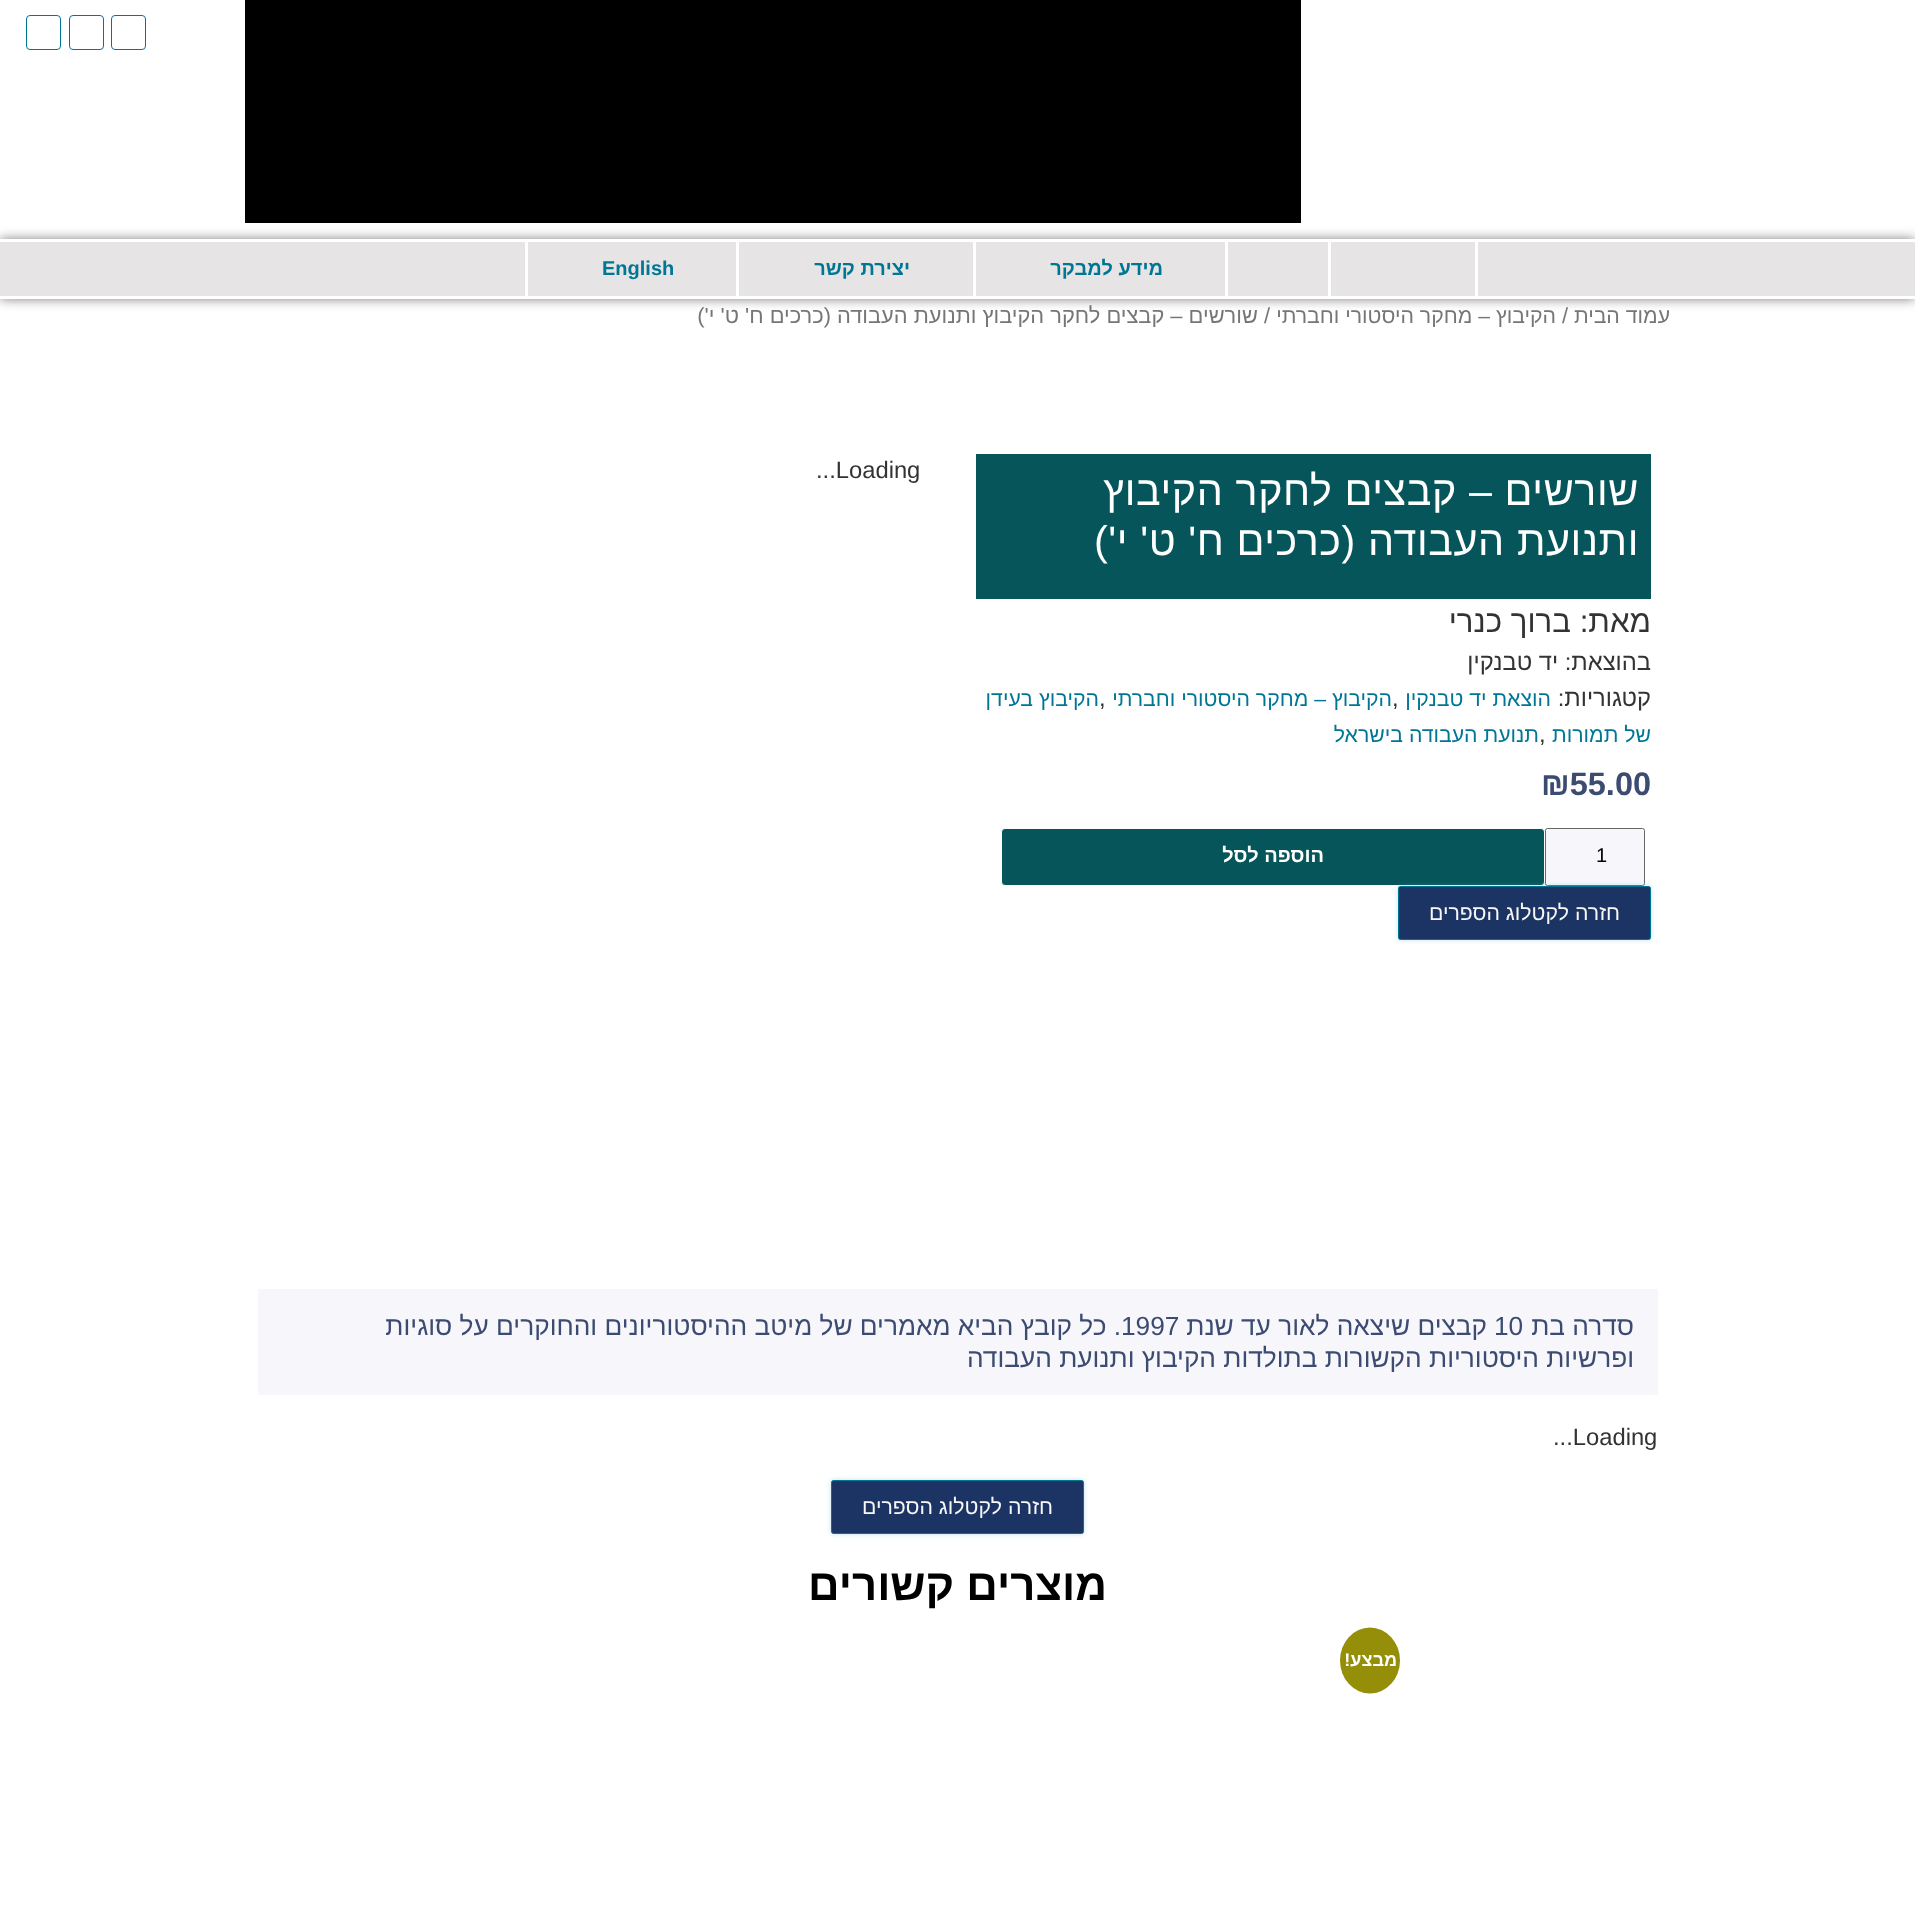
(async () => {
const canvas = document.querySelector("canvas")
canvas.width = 1915
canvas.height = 1909
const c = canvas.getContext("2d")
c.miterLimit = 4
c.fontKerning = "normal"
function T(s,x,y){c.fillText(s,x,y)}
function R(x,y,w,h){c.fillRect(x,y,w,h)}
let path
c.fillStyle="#fff"
R(0,0,1915,1909)
c.fillStyle="#000"
R(245,0,1056,223)
c.beginPath()
c.roundRect(111.5,15.5,34,34,3.5)
c.strokeStyle="#007695"
c.stroke()
c.beginPath()
c.roundRect(69.5,15.5,34,34,3.5)
c.stroke()
c.beginPath()
c.roundRect(26.5,15.5,34,34,3.5)
c.stroke()
c.fillStyle="#e6e4e4"
R(0,242,1915,54)
c.save()
path = new Path2D("M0 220h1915v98h-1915zm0 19h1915v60h-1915z")
c.clip(path,"evenodd")
c.fillStyle="#00000080"
c.filter="blur(6px)"
c.beginPath()
c.rect(0,239,1915,60)
c.fill()
c.filter="none"
c.restore()
c.fillStyle="#fff"
R(0,298,1915,1)
R(1475,241,3,55)
R(1328,241,3,55)
R(1225,241,3,55)
R(973,241,3,55)
c.direction="rtl"
c.font="bold 20px Liberation Sans"
c.fillStyle="#007695"
T("מידע למבקר",1163,275)
c.fillStyle="#fff"
R(736,241,3,55)
c.fillStyle="#007695"
T("יצירת קשר",910,275)
c.fillStyle="#fff"
R(525,241,3,55)
c.direction="ltr"
c.fillStyle="#007695"
T("English",602,275)
c.direction="rtl"
c.font="21.25px Liberation Sans"
c.fillStyle="#767676"
T("עמוד הבית",1670,323)
c.direction="ltr"
c.font="21.85px Liberation Sans"
T("/",1562,323)
c.direction="rtl"
c.font="21.25px Liberation Sans"
T("הקיבוץ – מחקר היסטורי וחברתי",1556,323)
c.font="21.85px Liberation Sans"
T("/ שורשים – קבצים לחקר הקיבוץ ותנועת העבודה (כרכים ח' ט' י')",1270,323)
c.fillStyle="#06555a"
R(976,454,675,145)
c.letterSpacing="0.6px"
c.font="41.25px Liberation Sans"
c.fillStyle="#fff"
T("שורשים – קבצים לחקר הקיבוץ",1639,505)
T("ותנועת העבודה (כרכים ח' ט' י')",1639,555)
c.letterSpacing="0px"
c.font="31.25px Liberation Sans"
c.fillStyle="#333"
T("מאת: ברוך כנרי",1651,632)
c.font="23.75px Liberation Sans"
T("בהוצאת: יד טבנקין",1651,670)
T("קטגוריות:",1651,706)
c.font="21.25px Liberation Sans"
c.fillStyle="#007695"
T("הוצאת יד טבנקין",1551,706)
c.direction="ltr"
c.font="23.75px Liberation Sans"
c.fillStyle="#333"
T(",",1392,706)
c.direction="rtl"
c.font="21.25px Liberation Sans"
c.fillStyle="#007695"
T("הקיבוץ – מחקר היסטורי וחברתי",1392,706)
c.direction="ltr"
c.font="23.75px Liberation Sans"
c.fillStyle="#333"
T(",",1099,706)
c.direction="rtl"
c.font="21.25px Liberation Sans"
c.fillStyle="#007695"
T("הקיבוץ בעידן",1099,706)
T("של תמורות",1651,742)
c.direction="ltr"
c.font="23.75px Liberation Sans"
c.fillStyle="#333"
T(",",1539,742)
c.direction="rtl"
c.font="21.25px Liberation Sans"
c.fillStyle="#007695"
T("תנועת העבודה בישראל",1539,742)
c.direction="ltr"
c.font="bold 32.5px Liberation Sans"
c.fillStyle="#3c4b71"
T("₪55.00",1541,795)
c.fillStyle="#f7f7fb"
c.beginPath()
c.roundRect(1545.5,828.5,99,57,2)
c.fill()
c.strokeStyle="#666"
c.stroke()
c.font="20px Liberation Sans"
c.fillStyle="#000"
T("1",1596,862)
c.fillStyle="#06555a"
c.beginPath()
c.roundRect(1001.5,828.5,543,57,3.5)
c.fill()
c.strokeStyle="#fff"
c.stroke()
c.direction="rtl"
c.font="bold 20px Liberation Sans"
c.fillStyle="#fff"
T("הוספה לסל",1324,862)
c.fillStyle="#5badcb5e"
c.filter="blur(2.5px)"
c.beginPath()
c.roundRect(1398,886,253,54,2.5)
c.fill()
c.filter="none"
c.fillStyle="#1c3464"
c.beginPath()
c.roundRect(1398.5,886.5,252,53,2)
c.fill()
c.strokeStyle="#007695"
c.stroke()
c.font="21.25px Liberation Sans"
c.fillStyle="#f7f7f7"
T("חזרה לקטלוג הספרים",1620,920)
c.direction="ltr"
c.font="23.75px Liberation Sans"
c.fillStyle="#333"
T("...Loading",816,478)
c.fillStyle="#f7f7fb"
R(258,1289,1400,106)
c.direction="rtl"
c.font="26.25px Liberation Sans"
c.fillStyle="#3c4b71"
T("סדרה בת",1634,1335)
c.direction="ltr"
T("10",1494,1335)
c.direction="rtl"
T("קבצים שיצאה לאור עד שנת",1487,1335)
c.direction="ltr"
T("1997",1121,1335)
c.direction="rtl"
T(". כל קובץ הביא מאמרים של מיטב ההיסטוריונים והחוקרים על סוגיות",1121,1335)
T("ופרשיות היסטוריות הקשורות בתולדות הקיבוץ ותנועת העבודה",1634,1367)
c.direction="ltr"
c.font="23.75px Liberation Sans"
c.fillStyle="#333"
T("...Loading",1553,1445)
c.fillStyle="#5badcb5e"
c.filter="blur(2.5px)"
c.beginPath()
c.roundRect(831,1480,253,54,2.5)
c.fill()
c.filter="none"
c.fillStyle="#1c3464"
c.beginPath()
c.roundRect(831.5,1480.5,252,53,2)
c.fill()
c.stroke()
c.direction="rtl"
c.font="21.25px Liberation Sans"
c.fillStyle="#f7f7f7"
T("חזרה לקטלוג הספרים",1053,1514)
c.font="bold 43.75px Liberation Sans"
c.fillStyle="#000"
T("מוצרים קשורים",1107,1600)
c.fillStyle="#958e09"
c.beginPath()
c.ellipse(1370,1660.5,30,33,0,0,7)
c.fill()
c.font="bold 18px Liberation Sans"
c.fillStyle="#fff"
T("מבצע!",1397,1666)
})()
